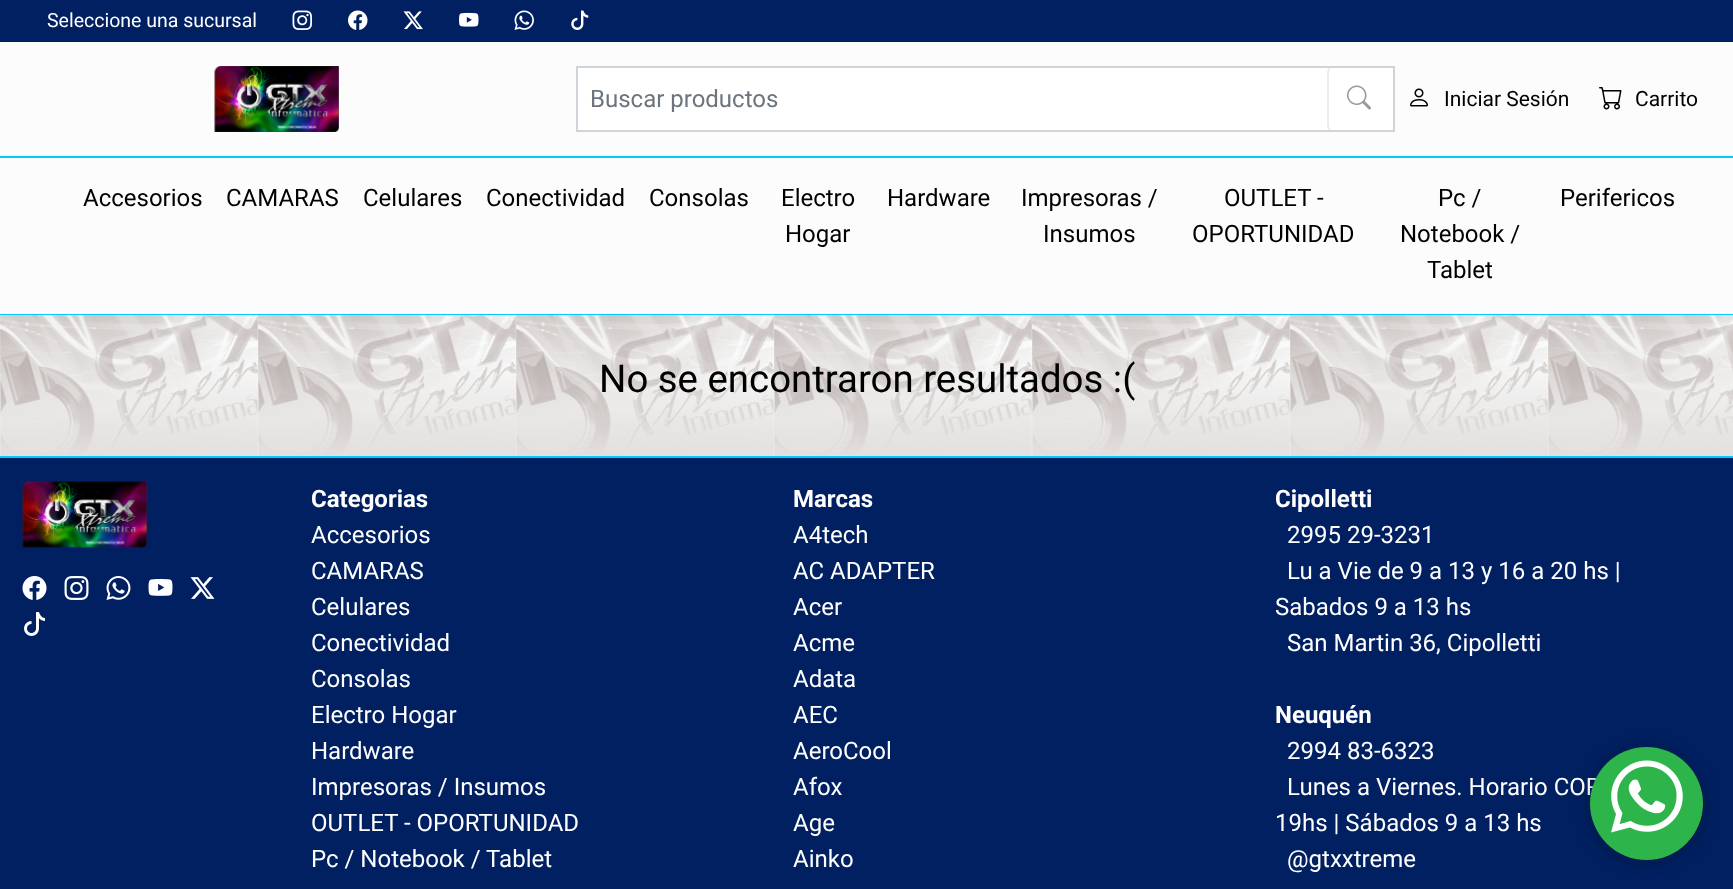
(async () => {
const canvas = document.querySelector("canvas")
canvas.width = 1733
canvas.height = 889
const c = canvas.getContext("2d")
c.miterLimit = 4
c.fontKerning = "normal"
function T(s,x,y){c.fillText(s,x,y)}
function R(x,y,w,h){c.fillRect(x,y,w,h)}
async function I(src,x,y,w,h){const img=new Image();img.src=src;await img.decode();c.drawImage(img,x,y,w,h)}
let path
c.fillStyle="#002061"
R(0,0,1733,889)
c.font="19.5px Roboto"
c.fillStyle="#fff"
T("Seleccione una sucursal",47,27)
await I("1.png",292,10,20,20)
await I("2.png",348,10,20,20)
await I("3.png",403,11,20,19)
await I("4.png",459,12,20,15)
await I("5.png",514,10,20,20)
await I("6.png",571,10,18,20)
c.fillStyle="#fcfcfc"
R(0,42,1733,114)
c.fillStyle="#0cf"
R(0,156,1733,2)
await I("7.png",214,66,125,66)
c.fillStyle="#fff"
c.beginPath()
c.rect(577,67,817,64)
c.fill()
c.strokeStyle="#ced4da"
c.lineWidth=2
c.stroke()
c.font="24px Roboto"
c.fillStyle="#6c757d"
T("Buscar productos",590,107)
path = new Path2D("M1330 129.5c-1-1-2-2-2-3.5v-54c0-1.5 1-2.5 2-3.5")
c.strokeStyle="#e6e6e6"
c.lineWidth=1.5
c.stroke(path)
await I("8.png",1347,85,24,25)
await I("9.png",1410,88,18,19)
c.font="21px Roboto"
c.fillStyle="#000"
T("Iniciar Sesión",1444,106)
await I("10.png",1599,87,23,23)
T("Carrito",1635,106)
c.fillStyle="#fcfcfc"
R(0,158,1733,156)
c.fillStyle="#0cf"
R(0,314,1733,1)
c.font="24px Roboto"
c.fillStyle="#000"
T("Accesorios",83,206)
T("CAMARAS",226,206)
T("Celulares",363,206)
T("Conectividad",486,206)
T("Consolas",649,206)
T("Electro",781,206)
T("Hogar",785,242)
T("Hardware",887,206)
T("Impresoras /",1021,206)
T("Insumos",1043,242)
T("OUTLET -",1224,206)
T("OPORTUNIDAD",1192,242)
T("Pc /",1438,206)
T("Notebook /",1400,242)
T("Tablet",1427,278)
T("Perifericos",1560,206)
await I("11.png",0,315,1733,141)
c.font="38.4px Roboto"
T("No se encontraron resultados :(",599,392)
c.fillStyle="#0cf"
R(0,456,1733,2)
await I("12.png",22,481,125,67)
await I("13.png",22,576,25,24)
await I("14.png",64,576,25,24)
await I("15.png",106,576,25,24)
await I("16.png",148,578,25,18)
await I("17.png",190,577,25,22)
await I("18.png",24,612,21,24)
c.font="bold 24px Roboto"
c.fillStyle="#fff"
T("Categorias",311,507)
c.font="24px Roboto"
T("Accesorios",311,543)
T("CAMARAS",311,579)
T("Celulares",311,615)
T("Conectividad",311,651)
T("Consolas",311,687)
T("Electro Hogar",311,723)
T("Hardware",311,759)
T("Impresoras / Insumos",311,795)
T("OUTLET - OPORTUNIDAD",311,831)
T("Pc / Notebook / Tablet",311,867)
c.font="bold 24px Roboto"
T("Marcas",793,507)
c.font="24px Roboto"
T("A4tech",793,543)
T("AC ADAPTER",793,579)
T("Acer",793,615)
T("Acme",793,651)
T("Adata",793,687)
T("AEC",793,723)
T("AeroCool",793,759)
T("Afox",793,795)
T("Age",793,831)
T("Ainko",793,867)
c.font="bold 24px Roboto"
T("Cipolletti",1275,507)
c.font="24px Roboto"
T("2995 29-3231",1287,543)
T("Lu a Vie de 9 a 13 y 16 a 20 hs |",1287,579)
T("Sabados 9 a 13 hs",1275,615)
T("San Martin 36, Cipolletti",1287,651)
c.font="bold 24px Roboto"
T("Neuquén",1275,723)
c.font="24px Roboto"
T("2994 83-6323",1287,759)
T("Lunes a Viernes. Horario COR",1287,795)
T("19hs | Sábados 9 a 13 hs",1275,831)
T("@gtxxtreme",1287,867)
c.fillStyle="#0000004d"
c.filter="blur(7.5px)"
c.beginPath()
c.roundRect(1590,749,113,112,56)
c.fill()
c.filter="none"
c.fillStyle="#2db44a"
c.beginPath()
c.arc(1646.5,803.5,56.5,0,7)
c.fill()
await I("19.png",1611,760,72,73)
})()
